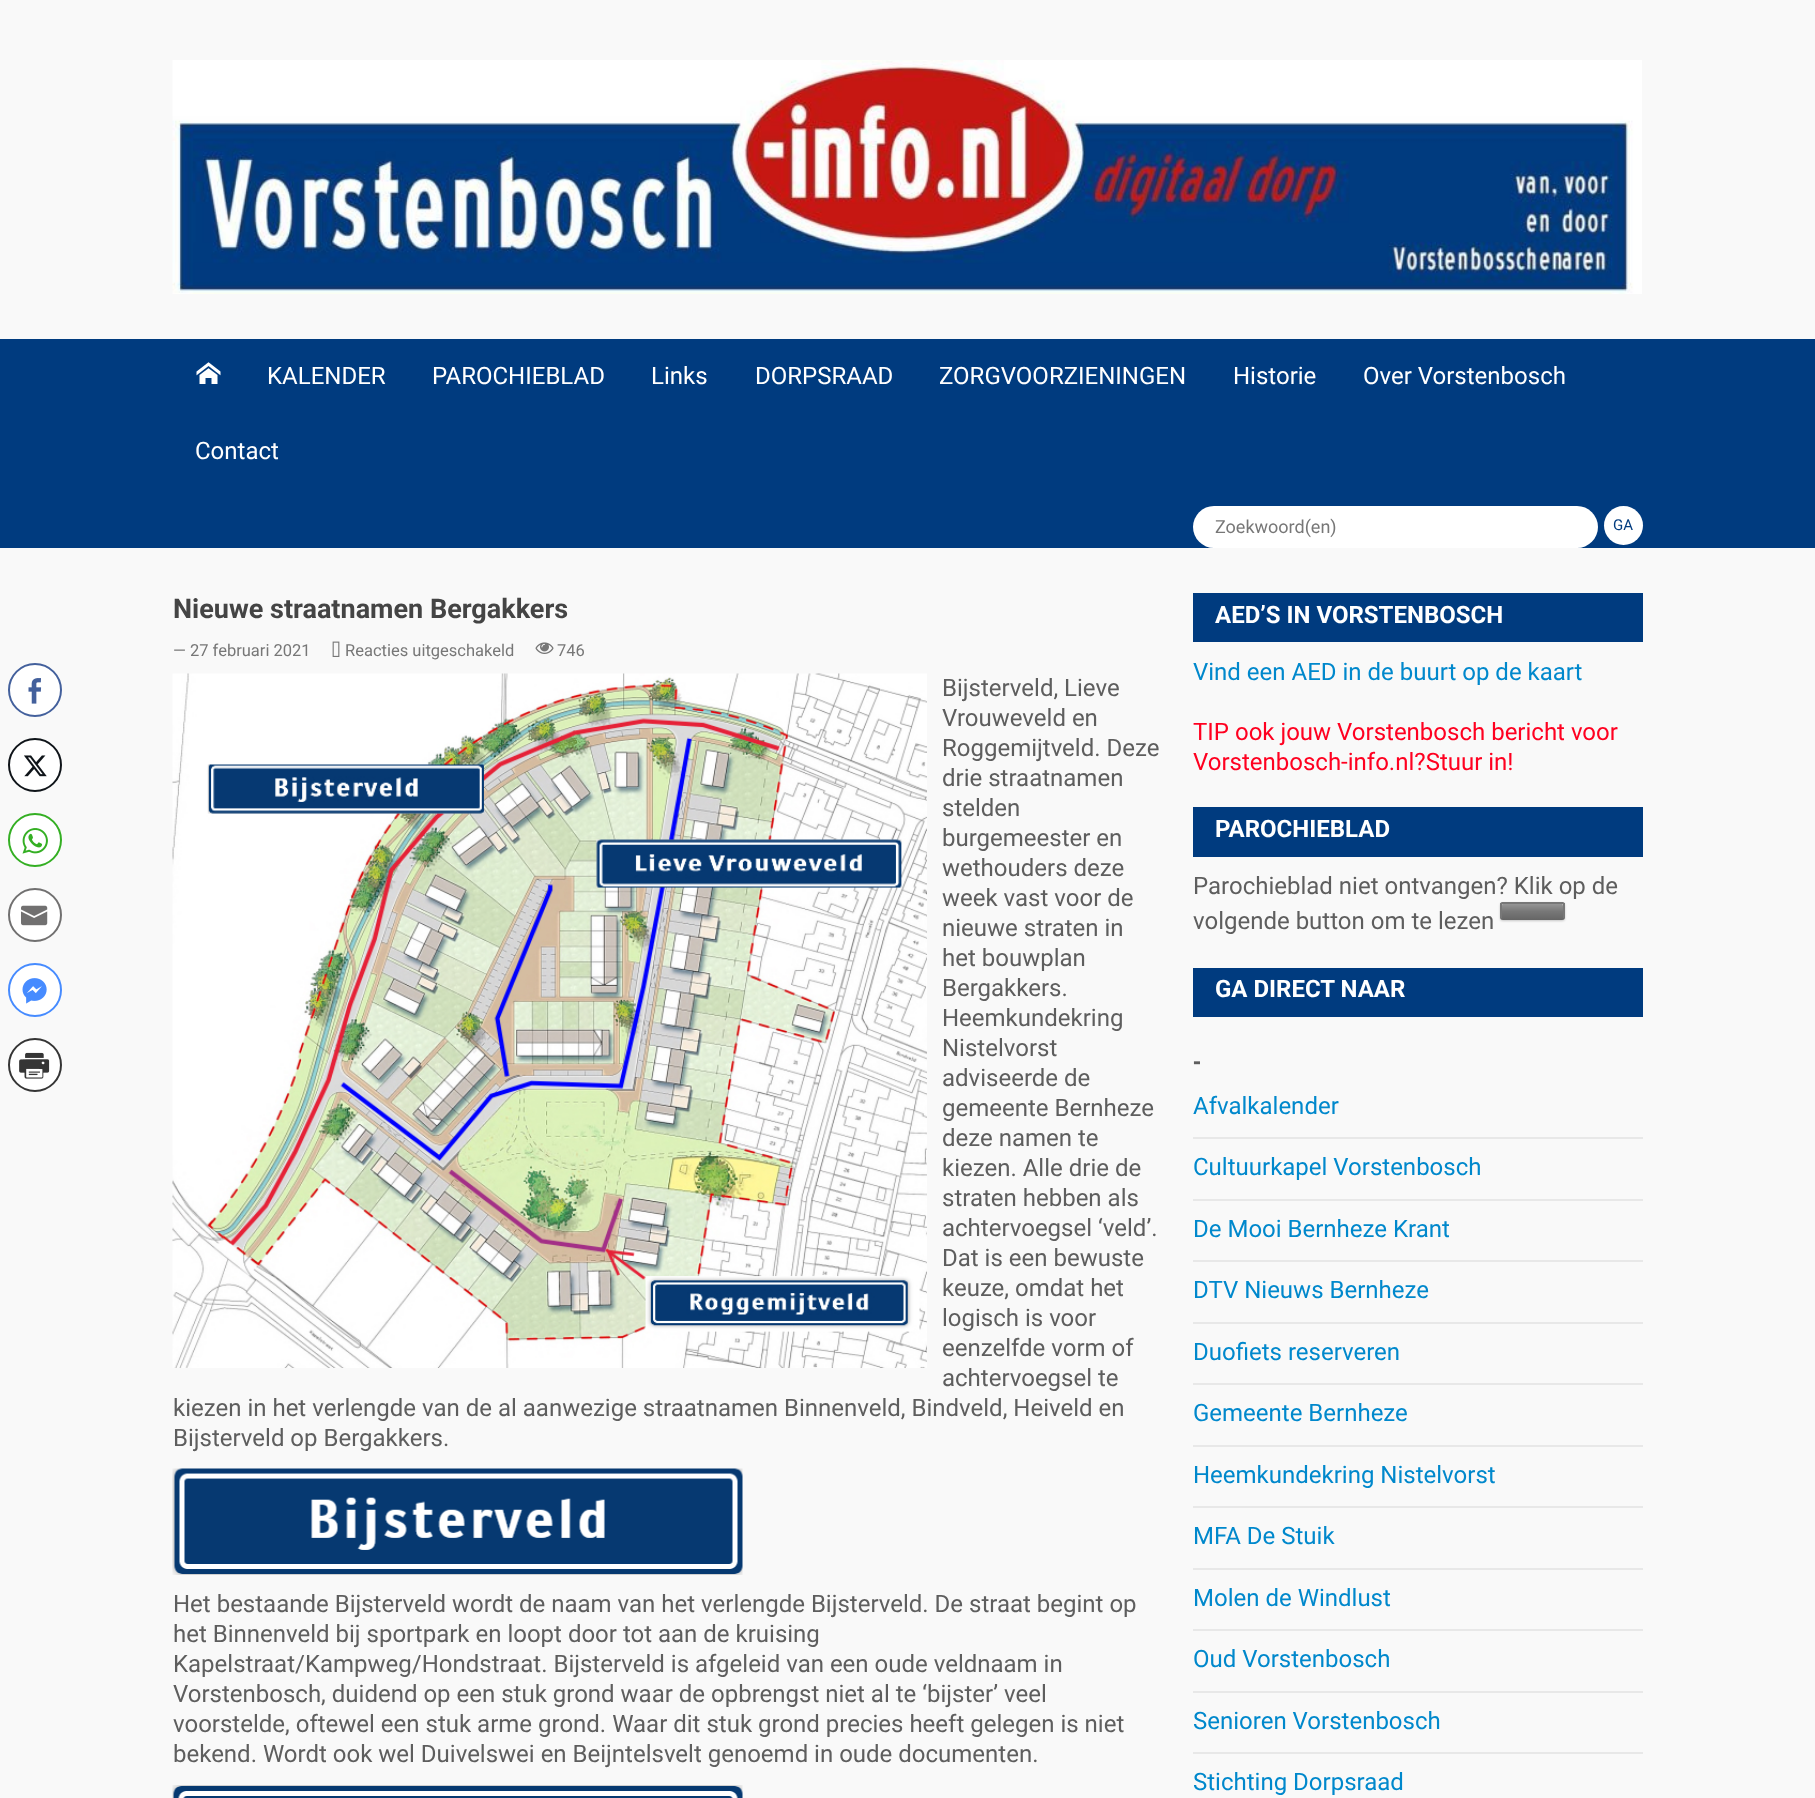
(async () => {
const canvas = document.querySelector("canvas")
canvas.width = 1815
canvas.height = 1798
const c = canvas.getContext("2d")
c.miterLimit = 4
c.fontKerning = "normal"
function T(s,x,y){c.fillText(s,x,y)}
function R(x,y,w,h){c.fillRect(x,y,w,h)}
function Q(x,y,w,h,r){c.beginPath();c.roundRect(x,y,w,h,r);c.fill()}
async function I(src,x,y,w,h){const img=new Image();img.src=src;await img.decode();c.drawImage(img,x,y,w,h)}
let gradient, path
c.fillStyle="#f9f9f9"
R(0,0,1815,1798)
await I("1.png",172,60,1470,234)
c.fillStyle="#003b7f"
R(0,339,1815,209)
await I("2.png",196,362,25,22)
c.font="24px Roboto"
c.fillStyle="#fff"
T("KALENDER",267,384)
T("PAROCHIEBLAD",432,384)
T("Links",651,384)
T("DORPSRAAD",755,384)
T("ZORGVOORZIENINGEN",939,384)
T("Historie",1233,384)
T("Over Vorstenbosch",1363,384)
T("Contact",195,459)
Q(1193,506,405,42,21)
c.font="18px Roboto"
c.fillStyle="#777"
T("Zoekwoord(en)",1215,533)
c.fillStyle="#fff"
c.beginPath()
c.arc(1623.5,525.5,19.5,0,7)
c.fill()
c.font="15px Roboto"
c.fillStyle="#003b7f"
T("GA",1613,530)
c.fillStyle="#fff"
c.beginPath()
c.arc(35,690,26,0,7)
c.fill()
c.strokeStyle="#43609c"
c.lineWidth=2
c.stroke()
await I("3.png",28,678,14,26)
c.beginPath()
c.arc(35,765,26,0,7)
c.fill()
c.strokeStyle="#0f1419"
c.stroke()
await I("4.png",24,755,23,22)
c.beginPath()
c.arc(35,840,26,0,7)
c.fill()
c.strokeStyle="#34af23"
c.stroke()
await I("5.png",22,828,26,26)
c.beginPath()
c.arc(35,915,26,0,7)
c.fill()
c.strokeStyle="#717070"
c.stroke()
await I("6.png",21,905,27,21)
c.beginPath()
c.arc(35,990,26,0,7)
c.fill()
c.strokeStyle="#468bff"
c.stroke()
await I("7.png",22,978,25,26)
c.beginPath()
c.arc(35,1065,26,0,7)
c.fill()
c.strokeStyle="#353535"
c.stroke()
await I("8.png",19,1052,31,27)
c.font="bold 27px Roboto"
c.fillStyle="#444"
T("Nieuwe straatnamen Bergakkers",173,618)
c.font="16.5px Roboto"
c.fillStyle="#777"
T("— 27 februari 2021",173,656)
await I("9.png",332,641,8,16)
T("Reacties uitgeschakeld",345,656)
await I("10.png",535,642,19,12)
T("746",557,656)
await I("11.png",172,673,755,695)
c.font="24px Roboto"
c.fillStyle="#5e5e5e"
T("Bijsterveld, Lieve",942,696)
T("Vrouweveld en",942,726)
T("Roggemijtveld. Deze",942,756)
T("drie straatnamen",942,786)
T("stelden",942,816)
T("burgemeester en",942,846)
T("wethouders deze",942,876)
T("week vast voor de",942,906)
T("nieuwe straten in",942,936)
T("het bouwplan",942,966)
T("Bergakkers.",942,996)
T("Heemkundekring",942,1026)
T("Nistelvorst",942,1056)
T("adviseerde de",942,1086)
T("gemeente Bernheze",942,1116)
T("deze namen te",942,1146)
T("kiezen. Alle drie de",942,1176)
T("straten hebben als",942,1206)
T("achtervoegsel ‘veld’.",942,1236)
T("Dat is een bewuste",942,1266)
T("keuze, omdat het",942,1296)
T("logisch is voor",942,1326)
T("eenzelfde vorm of",942,1356)
T("achtervoegsel te",942,1386)
T("kiezen in het verlengde van de al aanwezige straatnamen Binnenveld, Bindveld, Heiveld en",173,1416)
T("Bijsterveld op Bergakkers.",173,1446)
await I("12.png",172,1468,571,107)
T("Het bestaande Bijsterveld wordt de naam van het verlengde Bijsterveld. De straat begint op",173,1612)
T("het Binnenveld bij sportpark en loopt door tot aan de kruising",173,1642)
T("Kapelstraat/Kampweg/Hondstraat. Bijsterveld is afgeleid van een oude veldnaam in",173,1672)
T("Vorstenbosch, duidend op een stuk grond waar de opbrengst niet al te ‘bijster’ veel",173,1702)
T("voorstelde, oftewel een stuk arme grond. Waar dit stuk grond precies heeft gelegen is niet",173,1732)
T("bekend. Wordt ook wel Duivelswei en Beijntelsvelt genoemd in oude documenten.",173,1762)
await I("13.png",172,1785,571,13)
c.fillStyle="#003b7f"
R(1193,593,450,49)
c.font="bold 24px Roboto"
c.fillStyle="#fff"
T("AED’S IN VORSTENBOSCH",1215,623)
c.font="24px Roboto"
c.fillStyle="#08c"
T("Vind een AED in de buurt op de kaart",1193,680)
c.fillStyle="#ff0020"
T("TIP ook jouw Vorstenbosch bericht voor",1193,740)
T("Vorstenbosch-info.nl?Stuur in!",1193,770)
c.fillStyle="#003b7f"
R(1193,807,450,50)
c.font="bold 24px Roboto"
c.fillStyle="#fff"
T("PAROCHIEBLAD",1215,837)
c.font="24px Roboto"
c.fillStyle="#5e5e5e"
T("Parochieblad niet ontvangen? Klik op de",1193,894)
T("volgende button om te lezen",1193,929)
c.fillStyle="#00000033"
c.filter="blur(1px)"
c.beginPath()
c.roundRect(1500,903,65,18,3)
c.fill()
c.filter="none"
c.fillStyle="#777"
Q(1500,902,65,18,3)
c.save()
c.beginPath()
c.roundRect(1500,902,65,18,3)
c.clip()
gradient = c.createLinearGradient(1532,887,1532,903)
gradient.addColorStop(0,"#ffffff40")
gradient.addColorStop(.5,"#ffffff00")
gradient.addColorStop(.51,"#00000000")
gradient.addColorStop(1,"#00000026")
c.fillStyle = gradient
R(1500,902,65,1)
c.restore()
gradient = c.createLinearGradient(1532,903,1532,920)
gradient.addColorStop(0,"#ffffff40")
gradient.addColorStop(.5,"#ffffff00")
gradient.addColorStop(.51,"#00000000")
gradient.addColorStop(1,"#00000026")
c.fillStyle = gradient
c.beginPath()
c.roundRect(1500,903,65,17,[0,0,3,3])
c.fill()
c.fillStyle="#ffffff66"
path = new Path2D("M1503 904h59l1 2c0-1 0-3-1-3h-49c-12 0-11-3-11 7c0 3-1 6 0 9c0-3-1-15 1-15z")
c.fill(path)
c.fillStyle="#777"
R(1502,902,61,2)
R(1563,903,2,15)
R(1500,903,2,15)
c.fillStyle="#003b7f"
R(1193,968,450,49)
c.font="bold 24px Roboto"
c.fillStyle="#fff"
T("GA DIRECT NAAR",1215,997)
c.font="bold 24px Liberation Sans"
c.fillStyle="#5e5e5e"
T("-",1193,1069)
c.font="24px Roboto"
c.fillStyle="#08c"
T("Afvalkalender",1193,1114)
c.fillStyle="#e8e8e8"
R(1193,1137,450,2)
c.fillStyle="#08c"
T("Cultuurkapel Vorstenbosch",1193,1175)
c.fillStyle="#e8e8e8"
R(1193,1199,450,2)
c.fillStyle="#08c"
T("De Mooi Bernheze Krant",1193,1237)
c.fillStyle="#e8e8e8"
R(1193,1260,450,2)
c.fillStyle="#08c"
T("DTV Nieuws Bernheze",1193,1298)
c.fillStyle="#e8e8e8"
R(1193,1322,450,2)
c.fillStyle="#08c"
T("Duofiets reserveren",1193,1360)
c.fillStyle="#e8e8e8"
R(1193,1383,450,2)
c.fillStyle="#08c"
T("Gemeente Bernheze",1193,1421)
c.fillStyle="#e8e8e8"
R(1193,1445,450,2)
c.fillStyle="#08c"
T("Heemkundekring Nistelvorst",1193,1483)
c.fillStyle="#e8e8e8"
R(1193,1506,450,2)
c.fillStyle="#08c"
T("MFA De Stuik",1193,1544)
c.fillStyle="#e8e8e8"
R(1193,1568,450,2)
c.fillStyle="#08c"
T("Molen de Windlust",1193,1606)
c.fillStyle="#e8e8e8"
R(1193,1629,450,2)
c.fillStyle="#08c"
T("Oud Vorstenbosch",1193,1667)
c.fillStyle="#e8e8e8"
R(1193,1691,450,2)
c.fillStyle="#08c"
T("Senioren Vorstenbosch",1193,1729)
c.fillStyle="#e8e8e8"
R(1193,1752,450,2)
c.fillStyle="#08c"
T("Stichting Dorpsraad",1193,1790)
})()
